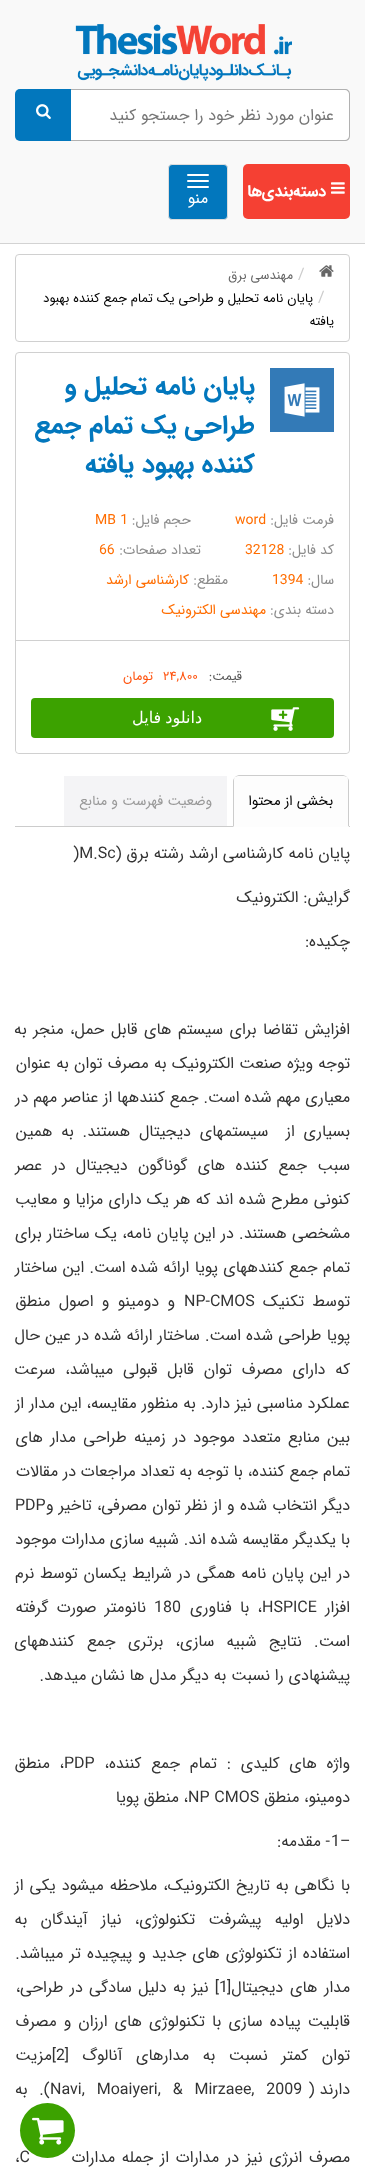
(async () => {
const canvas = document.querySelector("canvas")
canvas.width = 365
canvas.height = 2178
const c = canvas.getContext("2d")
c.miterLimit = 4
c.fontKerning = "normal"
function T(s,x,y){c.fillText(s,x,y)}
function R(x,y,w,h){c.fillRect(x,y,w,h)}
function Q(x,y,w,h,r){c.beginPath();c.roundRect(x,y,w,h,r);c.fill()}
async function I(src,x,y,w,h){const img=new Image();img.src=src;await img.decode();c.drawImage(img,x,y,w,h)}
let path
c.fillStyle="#fff"
R(0,0,365,2178)
c.fillStyle="#f9f9f9"
R(0,0,365,243)
c.fillStyle="#d3d3d3"
R(0,243,365,1)
await I("1.png",75,24,217,57)
c.fillStyle="#fff"
c.beginPath()
c.roundRect(71,89,279,52,[0,5,5,0])
c.fill()
c.fillStyle="#b1b1b1"
path = new Path2D("M71 89h274c3 0 5 2 5 5v42c0 3-2 5-5 5h-274zm0 1h274c2 0 4 2 4 4v42c0 2-2 4-4 4h-274z")
c.fill(path,"evenodd")
c.direction="rtl"
c.font="16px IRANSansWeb"
c.fillStyle="#757575"
T("عنوان مورد نظر خود را جستجو کنید",334,120)
c.fillStyle="#0277bd"
c.beginPath()
c.roundRect(15,89,56,52,[5,0,0,5])
c.fill()
await I("2.png",36,104,15,15)
c.fillStyle="#f54033"
Q(243,164,107,55,5)
await I("3.png",331,182,14,12)
c.font="bold 16px IRANSansWeb"
c.fillStyle="#fff"
T("دسته‌بندی‌ها",326,196)
c.fillStyle="#0277bd"
c.beginPath()
c.roundRect(168.5,164.5,59,55,3.5)
c.fill()
c.strokeStyle="#ddd"
c.stroke()
c.fillStyle="#fff"
Q(187,174,22,2,1)
Q(187,180,22,2,1)
Q(187,186,22,2,1)
c.font="16px IRANSansWeb"
T("منو",208,203)
c.beginPath()
c.roundRect(15.5,254.5,334,87,3.5)
c.strokeStyle="#d0d0d0"
c.stroke()
await I("4.png",319,265,15,12)
c.direction="ltr"
c.fillStyle="#ccc"
T("/",298,279)
c.direction="rtl"
c.font="13px IRANSansWeb"
c.fillStyle="#666"
T("مهندسی برق",293,279)
c.direction="ltr"
c.font="16px IRANSansWeb"
c.fillStyle="#ccc"
T("/",318,302)
c.direction="rtl"
c.font="13px IRANSansWeb"
c.fillStyle="#000"
T("پایان نامه تحلیل و طراحی یک تمام جمع کننده بهبود",313,302)
T("یافته",334,325)
c.beginPath()
c.roundRect(15.5,352.5,334,401,3.5)
c.stroke()
c.fillStyle="#d0d0d0"
R(16,640,333,1)
await I("5.png",270,368,64,64)
c.font="bold 26px IRANSansWeb"
c.fillStyle="#0277bd"
T("پایان نامه تحلیل و",255,394)
T("طراحی یک تمام جمع",255,433)
T("کننده بهبود یافته",255,472)
c.font="14px IRANSansWeb"
c.fillStyle="#8c8c8c"
T("فرمت فایل:",334,524)
c.direction="ltr"
c.fillStyle="#ff6d00"
T("word",235,524)
c.direction="rtl"
c.fillStyle="#8c8c8c"
T("حجم فایل:",191,524)
c.direction="ltr"
c.fillStyle="#ff6d00"
T("MB 1",95,524)
c.direction="rtl"
c.fillStyle="#8c8c8c"
T("کد فایل:",334,554)
c.direction="ltr"
c.fillStyle="#ff6d00"
T("32128",245,554)
c.direction="rtl"
c.fillStyle="#8c8c8c"
T("تعداد صفحات:",201,554)
c.direction="ltr"
c.fillStyle="#ff6d00"
T("66",99,554)
c.direction="rtl"
c.fillStyle="#8c8c8c"
T("سال:",334,584)
c.direction="ltr"
c.fillStyle="#ff6d00"
T("1394",272,584)
c.direction="rtl"
c.fillStyle="#8c8c8c"
T("مقطع:",228,584)
c.fillStyle="#ff6d00"
T("کارشناسی ارشد",189,584)
c.fillStyle="#8c8c8c"
T("دسته بندی:",334,614)
c.fillStyle="#ff6d00"
T("مهندسی الکترونیک",266,614)
c.fillStyle="#fff"
Q(16,641,333,112,4)
c.font="13px IRANSansWeb"
c.fillStyle="#555"
T("قیمت:",242,680)
c.direction="ltr"
c.fillStyle="#ff520d"
T("۲۴,۸۰۰",163,680)
c.direction="rtl"
T("تومان",153,680)
c.fillStyle="#3ca200"
Q(31,698,303,40,4)
await I("6.png",271,707,29,24)
c.wordSpacing="-1px"
c.font="16px DejaVu Sans"
c.fillStyle="#fff"
T("دانلود فایل",202,723)
c.fillStyle="#ccc"
R(15,826,335,1)
c.fillStyle="#fdfdfd"
c.beginPath()
c.roundRect(233,775,116,52,[6,6,0,0])
c.fill()
c.fillStyle="#ccc"
path = new Path2D("M239 775c-1 0-3 1-4 2l3-1h106l3 1c-1-1-3-2-4-2z")
c.fill(path)
path = new Path2D("M349 827v-46c0-1-1-3-2-4c1 1 1 3 1 4v45z")
c.fill(path)
c.fillStyle="#fdfdfd"
path = new Path2D("M349 827l-1-1h-114l-1 1z")
c.fill(path)
c.fillStyle="#ccc"
path = new Path2D("M233 827l1-1v-45c0-1 0-3 1-4c-1 1-2 3-2 4z")
c.fill(path)
c.wordSpacing="0px"
c.font="14px IRANSansWeb"
c.fillStyle="#000"
T("بخشی از محتوا",333,805)
c.fillStyle="#f4f4f6"
R(64,776,163,50)
c.fillStyle="#999"
T("وضعیت فهرست و منابع",212,805)
c.font="16px IRANSansWeb"
c.fillStyle="#333"
T("پایان نامه کارشناسی ارشد رشته برق (",350,858)
c.direction="ltr"
T(")M.Sc",73,858)
c.direction="rtl"
T("گرایش: الکترونیک",350,902)
T("چکیده:",350,946)
c.wordSpacing="1.75px"
T("افزایش تقاضا برای سیستم های قابل حمل، منجر به",350,1034)
c.wordSpacing="0.5px"
T("توجه ویژه صنعت الکترونیک به مصرف توان به عنوان",350,1068)
c.wordSpacing="0.1px"
T("معیاری مهم شده است. جمع کنندهها از عناصر مهم در",350,1102)
c.wordSpacing="4px"
T("بسیاری از  سیستمهای دیجیتال هستند. به همین",350,1136)
c.wordSpacing="5.5px"
T("سبب جمع کننده های گوناگون دیجیتال در عصر",350,1170)
c.wordSpacing="0.5px"
T("کنونی مطرح شده اند که هر یک دارای مزایا و معایب",350,1204)
T("مشخصی هستند. در این پایان نامه، یک ساختار برای",350,1238)
T("تمام جمع کنندههای پویا ارائه شده است. این ساختار",350,1272)
c.wordSpacing="3.5px"
T("توسط تکنیک",350,1306)
c.wordSpacing="0px"
c.direction="ltr"
T("NP-CMOS",184,1306)
c.wordSpacing="3.5px"
c.direction="rtl"
T("و دومینو و اصول منطق",175,1306)
c.wordSpacing="0.25px"
T("پویا طراحی شده است. ساختار ارائه شده در عین حال",350,1340)
c.wordSpacing="5px"
T("که دارای مصرف توان قابل قبولی میباشد، سرعت",350,1374)
c.wordSpacing="0.25px"
T("عملکرد مناسبی نیز دارد. به منظور مقایسه، این مدار از",350,1408)
c.wordSpacing="2.5px"
T("بین منابع متعدد موجود در زمینه طراحی مدار های",350,1442)
c.wordSpacing="0px"
T("تمام جمع کننده، با توجه به تعداد مراجعات در مقالات",350,1476)
c.wordSpacing="0.5px"
T("دیگر انتخاب شده و از نظر توان مصرفی، تاخیر و",350,1510)
c.wordSpacing="0px"
c.direction="ltr"
T("PDP",15,1510)
c.direction="rtl"
T("با یکدیگر مقایسه شده اند. شبیه سازی مدارات موجود",350,1544)
c.wordSpacing="1px"
T("در این پایان نامه همگی در شرایط یکسان توسط نرم",350,1578)
c.wordSpacing="0px"
T("افزار",350,1612)
c.direction="ltr"
T("HSPICE",262,1612)
c.wordSpacing="3.5px"
c.direction="rtl"
T("، با فناوری",262,1612)
c.wordSpacing="0px"
c.direction="ltr"
T("180",154,1612)
c.wordSpacing="3.5px"
c.direction="rtl"
T("نانومتر صورت گرفته",146,1612)
c.wordSpacing="7.5px"
T("است. نتایج شبیه سازی، برتری جمع کنندههای",350,1646)
c.wordSpacing="0px"
T("پیشنهادی را نسبت به دیگر مدل ها نشان میدهد.",350,1680)
c.wordSpacing="5px"
T("واژه های کلیدی : تمام جمع کننده،",350,1768)
c.wordSpacing="0px"
c.direction="ltr"
T("PDP",64,1768)
c.wordSpacing="5px"
c.direction="rtl"
T("، منطق",64,1768)
c.wordSpacing="0px"
T("دومینو، منطق",350,1802)
c.direction="ltr"
T("NP CMOS",188,1802)
c.direction="rtl"
T("، منطق پویا",188,1802)
c.direction="ltr"
T("1–",331,1846)
c.direction="rtl"
T("- مقدمه:",330,1846)
c.wordSpacing="1.25px"
T("با نگاهی به تاریخ الکترونیک، ملاحظه میشود یکی از",350,1890)
c.wordSpacing="8.5px"
T("دلایل اولیه پیشرفت تکنولوژی، نیاز آیندگان به",350,1924)
c.wordSpacing="1.25px"
T("استفاده از تکنولوژی های جدید و پیچیده تر میباشد.",350,1958)
c.wordSpacing="2px"
T("مدار های دیجیتال[",350,1992)
c.wordSpacing="0px"
c.direction="ltr"
T("1",219,1992)
c.wordSpacing="1.5px"
c.direction="rtl"
T("] نیز به دلیل سادگی در طراحی،",219,1992)
c.wordSpacing="2.25px"
T("قابلیت پیاده سازی با تکنولوژی های ارزان و مصرف",350,2026)
c.wordSpacing="0px"
c.direction="ltr"
T("2",56,2060)
c.wordSpacing="8.75px"
c.direction="rtl"
T("توان کمتر نسبت به مدارهای آنالوگ [",350,2060)
c.wordSpacing="0px"
T("]مزیت",56,2060)
T("دارند (",350,2094)
c.wordSpacing="7px"
c.direction="ltr"
T("Navi, Moaiyeri, & Mirzaee, 2009",50,2094)
c.direction="rtl"
T("). به",50,2094)
c.wordSpacing="2px"
T("مصرف انرژی نیز در مدارات از جمله مدارات",350,2162)
c.wordSpacing="0px"
c.direction="ltr"
T("،C",15,2162)
c.fillStyle="#3ca200"
c.beginPath()
c.arc(47.5,2130.5,27.5,0,7)
c.fill()
await I("7.png",32,2117,32,28)
})()
